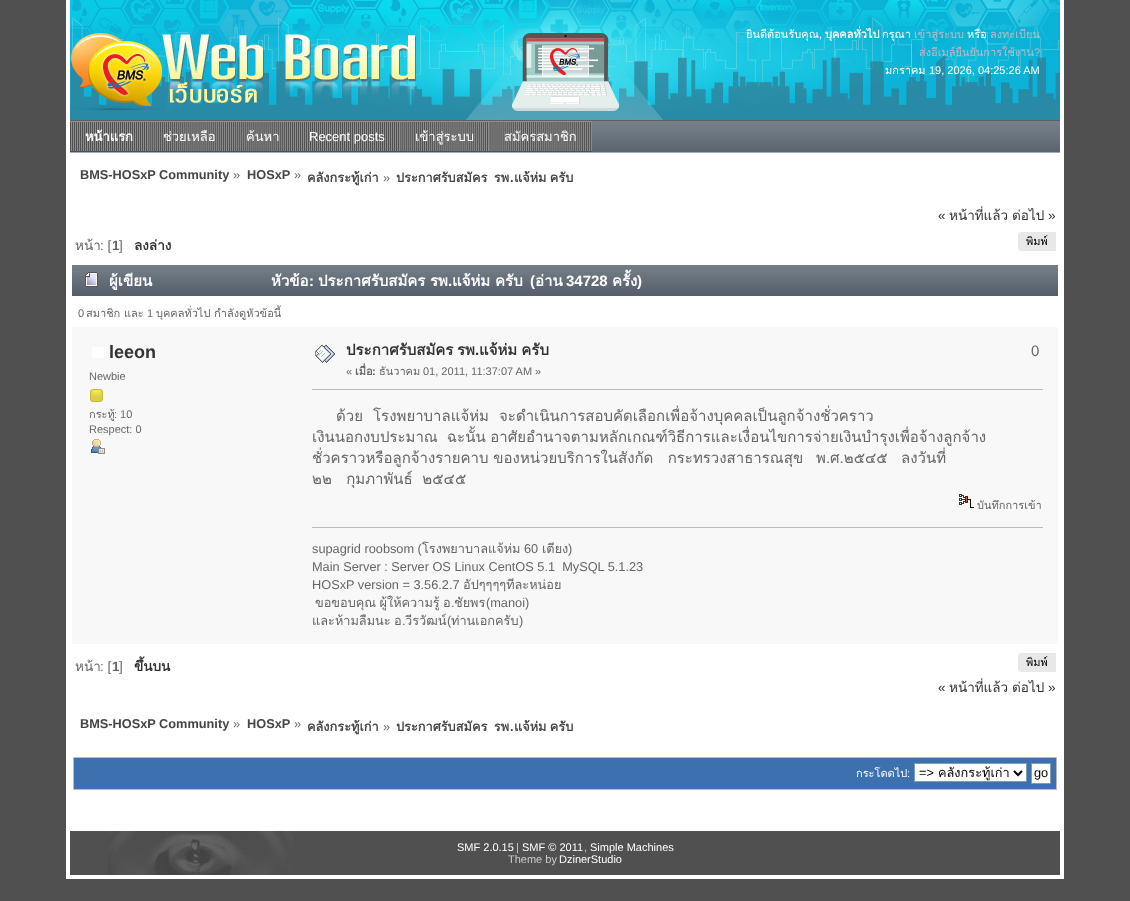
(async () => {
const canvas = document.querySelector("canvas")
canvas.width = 1130
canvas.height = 901
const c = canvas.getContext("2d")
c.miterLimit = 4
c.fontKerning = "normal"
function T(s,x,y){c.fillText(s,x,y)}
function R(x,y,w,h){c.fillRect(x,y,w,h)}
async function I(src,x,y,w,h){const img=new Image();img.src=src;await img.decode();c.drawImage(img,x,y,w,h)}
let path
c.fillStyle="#505050"
R(0,0,1130,901)
c.fillStyle="#fff"
R(1060,0,4,879)
R(66,875,998,4)
R(66,0,4,879)
await I("1.png",70,0,990,120)
await I("2.png",71,33,345,77)
c.font="11px Loma"
T("ยินดีต้อนรับคุณ",746,38)
c.font="11px Liberation Sans"
T(",",819,38)
c.font="bold 11px Loma"
T("บุคคลทั่วไป",825,38)
c.font="11px Loma"
T("กรุณา",882,38)
c.fillStyle="#bcbcbc"
T("เข้าสู่ระบบ",914,38)
c.fillStyle="#fff"
T("หรือ",967,38)
c.fillStyle="#bcbcbc"
T("ลงทะเบียน",990,38)
T("ส่งอีเมล์ยืนยันการใช้งาน",919,56)
c.font="11px Liberation Sans"
T("?",1034,56)
c.font="11px Loma"
c.fillStyle="#fff"
T("มกราคม",885,74)
c.font="11px Liberation Sans"
T("19, 2026, 04:25:26 AM",929,74)
await I("3.png",592,121,468,31)
c.fillStyle="#606060"
R(70,120,990,1)
await I("4.png",70,121,78,31)
c.font="bold 13px Loma"
c.fillStyle="#fff"
T("หน้าแรก",85,141)
await I("5.png",148,121,83,31)
c.font="13px Loma"
T("ช่วยเหลือ",163,141)
await I("6.png",231,121,63,31)
T("ค้นหา",246,141)
await I("7.png",294,121,106,31)
c.font="13px Liberation Sans"
T("Recent posts",309,141)
await I("8.png",400,121,89,31)
c.font="13px Loma"
T("เข้าสู่ระบบ",415,141)
await I("9.png",489,121,103,31)
T("สมัครสมาชิก",504,141)
R(70,153,990,678)
c.fillStyle="#a3a9be"
R(70,152,990,1)
c.font="bold 12.75px Liberation Sans"
c.fillStyle="#454545"
T("BMS-HOSxP Community",80,179)
c.font="12.75px Liberation Sans"
c.fillStyle="#666"
T("»",233,179)
c.font="bold 12.75px Liberation Sans"
c.fillStyle="#454545"
T("HOSxP",247,179)
c.font="12.75px Liberation Sans"
c.fillStyle="#666"
T("»",294,179)
c.font="bold 12.75px Loma"
c.fillStyle="#454545"
T("คลังกระทู้เก่า",307,182)
c.font="12.75px Liberation Sans"
c.fillStyle="#666"
T("»",383,182)
c.wordSpacing="-1px"
c.font="bold 12.75px Loma"
c.fillStyle="#454545"
T("ประกาศรับสมัคร  รพ",396,182)
c.wordSpacing="0px"
c.font="bold 12.75px Liberation Sans"
T(".",510,182)
c.wordSpacing="-1px"
c.font="bold 12.75px Loma"
T("แจ้ห่ม ครับ",514,182)
c.wordSpacing="0px"
c.font="13.5px Liberation Sans"
c.fillStyle="#333"
T("«",938,220)
c.font="13.5px Loma"
T("หน้าที่แล้ว",949,220)
T("ต่อไป",1012,220)
c.font="13.5px Liberation Sans"
T("»",1048,220)
c.font="13.5px Loma"
c.fillStyle="#666"
T("หน้า",75,250)
c.font="13.5px Liberation Sans"
T(": [",100,250)
c.font="bold 13.5px Liberation Sans"
T("1",112,250)
c.font="13.5px Liberation Sans"
T("]",119,250)
c.font="bold 13.5px Loma"
c.fillStyle="#333"
T("ลงล่าง",134,250)
await I("10.png",1018,232,30,19)
c.fillStyle="#e8e8e8"
R(1048,232,8,19)
c.font="11px Loma"
c.fillStyle="#000"
T("พิมพ์",1026,245)
await I("11.png",72,265,986,31)
await I("12.png",85,272,13,15)
c.font="bold 15px Loma"
c.fillStyle="#fff"
T("ผู้เขียน",109,286)
T("หัวข้อ",271,286)
T("ประกาศรับสมัคร",318,286)
c.wordSpacing="-0.25px"
T("แจ้ห่ม ครับ",452,286)
c.wordSpacing="0px"
c.font="bold 15px Liberation Sans"
T("(",530,286)
c.font="bold 15px Loma"
T("อ่าน",535,286)
T("ครั้ง",612,286)
c.font="bold 15px Liberation Sans"
T(":",309,286)
c.font="bold 15px Loma"
T("รพ",430,286)
c.font="bold 15px Liberation Sans"
T(".",448,286)
T("34728",566,286)
T(")",637,286)
c.font="11px Liberation Sans"
c.fillStyle="#666"
T("0",78,317)
c.font="11px Loma"
T("สมาชิก และ",86,317)
c.font="11px Liberation Sans"
T("1",147,317)
c.font="11px Loma"
T("บุคคลทั่วไป กำลังดูหัวข้อนี้",156,317)
c.fillStyle="#f8f8f8"
R(72,327,986,317)
c.fillStyle="#fff"
R(92,347,12,11)
c.font="bold 18px Liberation Sans"
c.fillStyle="#333"
T("leeon",109,358)
c.font="11px Liberation Sans"
c.fillStyle="#666"
T("Newbie",89,380)
await I("13.png",90,389,13,13)
c.font="11px Loma"
T("กระทู้",89,418)
c.font="11px Liberation Sans"
T(": 10",114,418)
T("Respect: 0",89,433)
await I("14.png",91,439,14,15)
await I("15.png",315,345,20,18)
c.font="bold 15px Loma"
c.fillStyle="#333"
T("ประกาศรับสมัคร",346,355)
T("รพ",457,355)
c.font="bold 15px Liberation Sans"
T(".",475,355)
c.wordSpacing="-1px"
c.font="bold 15px Loma"
T("แจ้ห่ม ครับ",479,355)
c.wordSpacing="0px"
c.font="11px Liberation Sans"
c.fillStyle="#666"
T("«",346,375)
c.font="bold 11px Loma"
T("เมื่อ",355,375)
c.font="bold 11px Liberation Sans"
T(":",372,375)
c.font="11px Loma"
T("ธันวาคม",379,375)
c.font="11px Liberation Sans"
T("01, 2011, 11:37:07 AM »",423,375)
c.font="15px Liberation Sans"
T("0",1031,356)
c.fillStyle="#bbb"
R(312,389,731,1)
c.font="15px Loma"
c.fillStyle="#666"
T("ด้วย  โรงพยาบาลแจ้ห่ม  จะดำเนินการสอบคัดเลือกเพื่อจ้างบุคคลเป็นลูกจ้างชั่วคราว",336,421)
c.save()
c.beginPath()
c.rect(312,388,746,105)
c.clip()
c.wordSpacing="-0.5px"
T("เงินนอกงบประมาณ  ฉะนั้น อาศัยอำนาจตามหลักเกณฑ์วิธีการและเงื่อนไขการจ่ายเงินบำรุงเพื่อจ้างลูกจ้าง",312,442)
c.wordSpacing="-0.25px"
T("ชั่วคราวหรือลูกจ้างรายคาบ ของหน่วยบริการในสังกัด   กระทรวงสาธารณสุข",312,463)
T("พ.ศ.๒๕๔๕",816,463)
T("ลงวันที่",901,463)
c.restore()
c.wordSpacing="-0.25px"
T("๒๒   กุมภาพันธ์  ๒๕๔๕",312,484)
await I("16.png",959,494,15,14)
c.wordSpacing="0px"
c.font="11px Loma"
T("บันทึกการเข้า",977,509)
c.fillStyle="#bbb"
R(312,527,731,1)
c.font="12.75px Liberation Sans"
c.fillStyle="#666"
T("supagrid roobsom (",312,553)
c.font="12.75px Loma"
T("โรงพยาบาลแจ้ห่ม",422,553)
c.font="12.75px Liberation Sans"
T("60",524,553)
c.font="12.75px Loma"
T("เตียง",542,553)
c.font="12.75px Liberation Sans"
T(")",568,553)
T("Main Server : Server OS Linux CentOS 5.1  MySQL 5.1.23",312,571)
T("HOSxP version = 3.56.2.7",312,589)
c.font="12.75px Loma"
T("อัปๆๆๆๆทีละหน่อย",463,589)
c.wordSpacing="-1px"
T("ขอขอบคุณ ผู้ให้ความรู้ อ",315,607)
c.wordSpacing="0px"
c.font="12.75px Liberation Sans"
T(".",451,607)
c.font="12.75px Loma"
T("ชัยพร",454,607)
c.font="12.75px Liberation Sans"
T("(manoi)",486,607)
c.wordSpacing="-1px"
c.font="12.75px Loma"
T("และห้ามลืมนะ อ",312,625)
c.wordSpacing="0px"
c.font="12.75px Liberation Sans"
T(".",402,625)
c.font="12.75px Loma"
T("วีรวัฒน์",405,625)
c.font="12.75px Liberation Sans"
T("(",447,625)
c.font="12.75px Loma"
T("ท่านเอกครับ",451,625)
c.font="12.75px Liberation Sans"
T(")",519,625)
c.font="13.5px Loma"
T("หน้า",75,671)
c.font="13.5px Liberation Sans"
T(": [",100,671)
c.font="bold 13.5px Liberation Sans"
T("1",112,671)
c.font="13.5px Liberation Sans"
T("]",119,671)
c.font="bold 13.5px Loma"
c.fillStyle="#333"
T("ขึ้นบน",134,671)
await I("10.png",1018,653,30,19)
c.fillStyle="#e8e8e8"
R(1048,653,8,19)
c.font="11px Loma"
c.fillStyle="#000"
T("พิมพ์",1026,666)
c.font="13.5px Liberation Sans"
c.fillStyle="#333"
T("«",938,692)
c.font="13.5px Loma"
T("หน้าที่แล้ว",949,692)
T("ต่อไป",1012,692)
c.font="13.5px Liberation Sans"
T("»",1048,692)
c.font="bold 12.75px Liberation Sans"
c.fillStyle="#454545"
T("BMS-HOSxP Community",80,728)
c.font="12.75px Liberation Sans"
c.fillStyle="#666"
T("»",233,728)
c.font="bold 12.75px Liberation Sans"
c.fillStyle="#454545"
T("HOSxP",247,728)
c.font="12.75px Liberation Sans"
c.fillStyle="#666"
T("»",294,728)
c.font="bold 12.75px Loma"
c.fillStyle="#454545"
T("คลังกระทู้เก่า",307,731)
c.font="12.75px Liberation Sans"
c.fillStyle="#666"
T("»",383,731)
c.wordSpacing="-1px"
c.font="bold 12.75px Loma"
c.fillStyle="#454545"
T("ประกาศรับสมัคร  รพ",396,731)
c.wordSpacing="0px"
c.font="bold 12.75px Liberation Sans"
T(".",510,731)
c.wordSpacing="-1px"
c.font="bold 12.75px Loma"
T("แจ้ห่ม ครับ",514,731)
c.fillStyle="#3d70af"
c.beginPath()
c.rect(73.5,757.5,983,32)
c.fill()
c.strokeStyle="#bbb"
c.stroke()
c.wordSpacing="0px"
c.font="11px Loma"
c.fillStyle="#fff"
T("กระโดดไป",856,777)
c.font="11px Liberation Sans"
T(":",907,777)
c.beginPath()
c.rect(914.5,763.5,112,18)
c.fill()
c.strokeStyle="#7f9db9"
c.stroke()
path = new Path2D("M1014 771l4 4l4-4")
c.strokeStyle="#000"
c.lineWidth=2
c.stroke(path)
c.font="12.75px Liberation Sans"
c.fillStyle="#000"
T("=>",919,777)
c.font="12.75px Loma"
T("คลังกระทู้เก่า",938,777)
c.fillStyle="#fff"
c.beginPath()
c.rect(1031.5,763.5,19,20)
c.fill()
c.strokeStyle="#7f9db9"
c.lineWidth=1
c.stroke()
c.font="12.75px Liberation Sans"
c.fillStyle="#000"
T("go",1034,777)
await I("17.png",108,831,185,44)
c.font="11px Liberation Sans"
c.fillStyle="#fff"
T("SMF 2.0.15",457,851)
c.fillStyle="#ccc"
T("|",516,851)
c.fillStyle="#fff"
T("SMF © 2011",522,851)
c.fillStyle="#ccc"
T(",",584,851)
c.fillStyle="#fff"
T("Simple Machines",590,851)
c.fillStyle="#ccc"
T("Theme by",508,863)
c.fillStyle="#fff"
T("DzinerStudio",559,863)
})()
